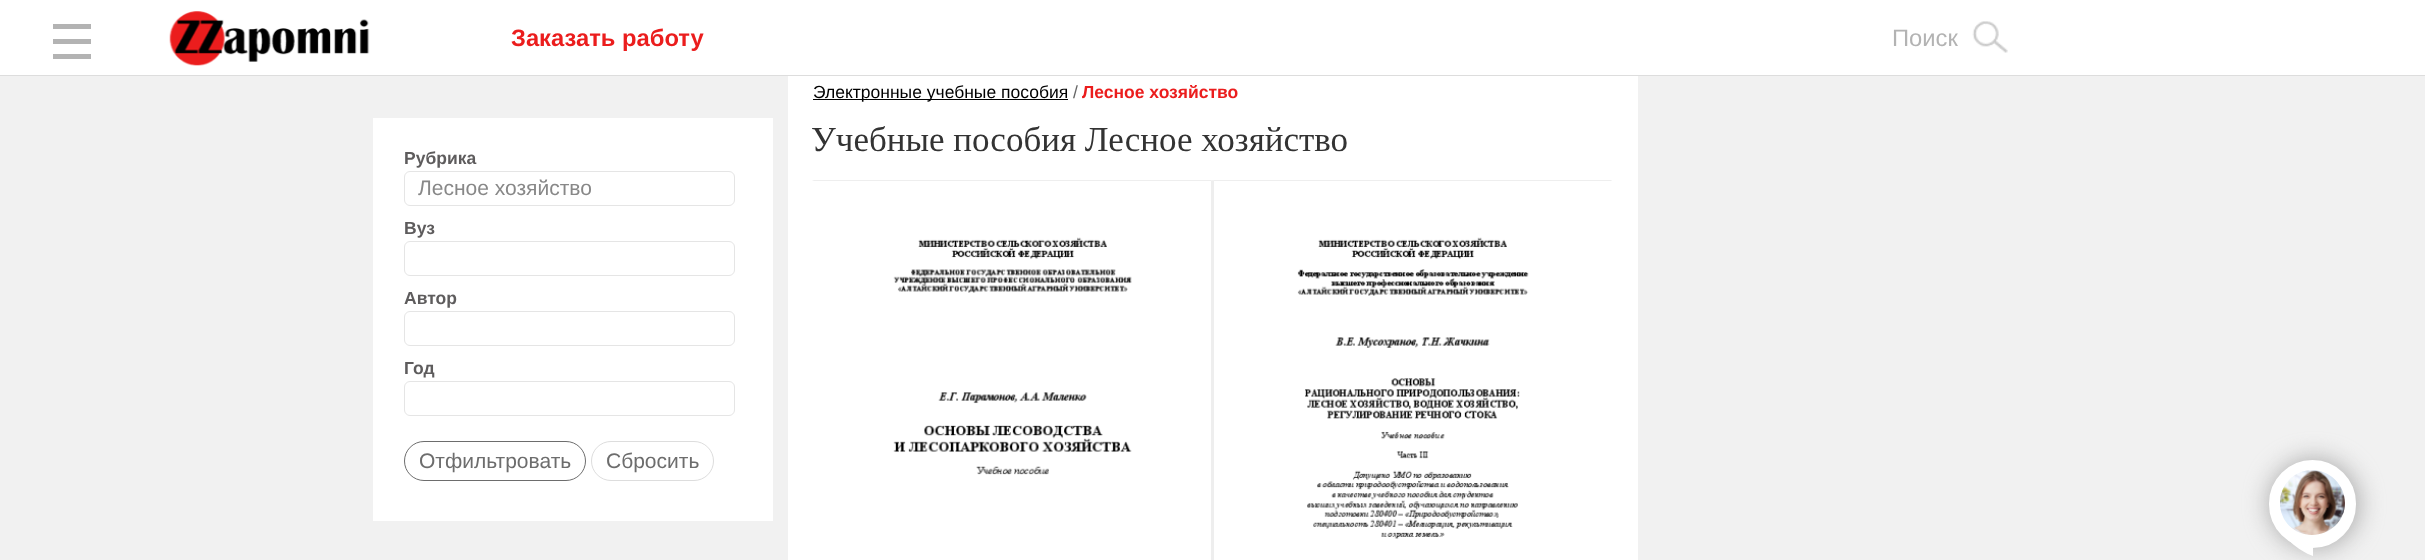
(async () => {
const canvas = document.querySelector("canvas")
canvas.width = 2425
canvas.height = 560
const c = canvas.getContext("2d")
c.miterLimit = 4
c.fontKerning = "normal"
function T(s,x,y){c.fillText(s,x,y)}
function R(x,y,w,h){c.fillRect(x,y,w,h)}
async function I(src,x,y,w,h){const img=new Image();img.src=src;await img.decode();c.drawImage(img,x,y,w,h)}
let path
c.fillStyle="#f1f1f1"
R(0,0,2425,560)
c.fillStyle="#fff"
R(0,0,2425,75)
c.fillStyle="#ddd"
R(0,75,2425,1)
c.fillStyle="#b3b3b3"
R(53,24,38,5)
R(53,39,38,5)
R(53,54,38,5)
await I("1.png",169,11,201,55)
c.font="bold 23.75px Liberation Sans"
c.fillStyle="#eb1d1d"
T("Заказать работу",511,46)
await I("2.png",1972,21,36,32)
c.font="23.75px Liberation Sans"
c.fillStyle="#b3b3b3"
T("Поиск",1892,46)
c.fillStyle="#fff"
R(788,76,850,484)
c.fillStyle="#000"
R(813,99,255,1)
c.font="17.5px Liberation Sans"
T("Электронные учебные пособия",813,98)
c.fillStyle="#666"
T("/",1073,98)
c.font="bold 17.5px Liberation Sans"
c.fillStyle="#eb1d1d"
T("Лесное хозяйство",1082,98)
c.font="35px Liberation Serif"
c.fillStyle="#333"
T("Учебные пособия Лесное хозяйство",811,151)
c.fillStyle="#eee"
path = new Path2D("M812 180h400l-1 1h-397z")
c.fill(path)
path = new Path2D("M1212 180v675l-1-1v-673z")
c.fill(path)
await I("3.png",893,237,239,238)
path = new Path2D("M1212 180h400l-1 1h-397z")
c.fill(path)
path = new Path2D("M1212 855v-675l2 1v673z")
c.fill(path)
await I("4.png",1297,237,232,302)
c.fillStyle="#fff"
R(373,118,400,403)
c.font="bold 17.5px Liberation Sans"
c.fillStyle="#5e5c5d"
T("Рубрика",404,164)
c.beginPath()
c.roundRect(404.5,171.5,330,34,5.5)
c.strokeStyle="#e5e5e5"
c.stroke()
c.font="21px Liberation Sans"
c.fillStyle="#888"
T("Лесное хозяйство",418,195)
c.font="bold 17.5px Liberation Sans"
c.fillStyle="#5e5c5d"
T("Вуз",404,234)
c.beginPath()
c.roundRect(404.5,241.5,330,34,5.5)
c.stroke()
T("Автор",404,304)
c.beginPath()
c.roundRect(404.5,311.5,330,34,5.5)
c.stroke()
T("Год",404,374)
c.beginPath()
c.roundRect(404.5,381.5,330,34,5.5)
c.stroke()
c.beginPath()
c.roundRect(404.5,441.5,181,39,19.5)
c.strokeStyle="#6d6d6d"
c.stroke()
c.font="21px Liberation Sans"
c.fillStyle="#6d6d6d"
T("Отфильтровать",419,468)
c.beginPath()
c.roundRect(591.5,441.5,122,39,19.5)
c.strokeStyle="#ddd"
c.stroke()
T("Сбросить",606,468)
c.fillStyle="#9d9d9dd9"
c.filter="blur(12.5px)"
c.beginPath()
c.roundRect(2269,459,90,90,45)
c.fill()
c.filter="none"
c.beginPath()
c.roundRect(2273.5,464.5,78,79,39)
c.strokeStyle="#fff"
c.lineWidth=9
c.stroke()
await I("5.png",2280,470,65,65)
c.save()
c.beginPath()
c.rect(2273,464,80,94)
c.clip()
c.fillStyle="#fff"
path = new Path2D("M2345 503c0 18-15 32-33 32c-18 0-32-14-32-32c0-18 14-33 32-33c18 0 33 15 33 33zm-73-1c-1 30 27 49 41 54v-13c21-1 39-18 39-40c0-22-18-40-40-40c-22 0-40 17-40 39z")
c.fill(path,"evenodd")
c.restore()
})()
